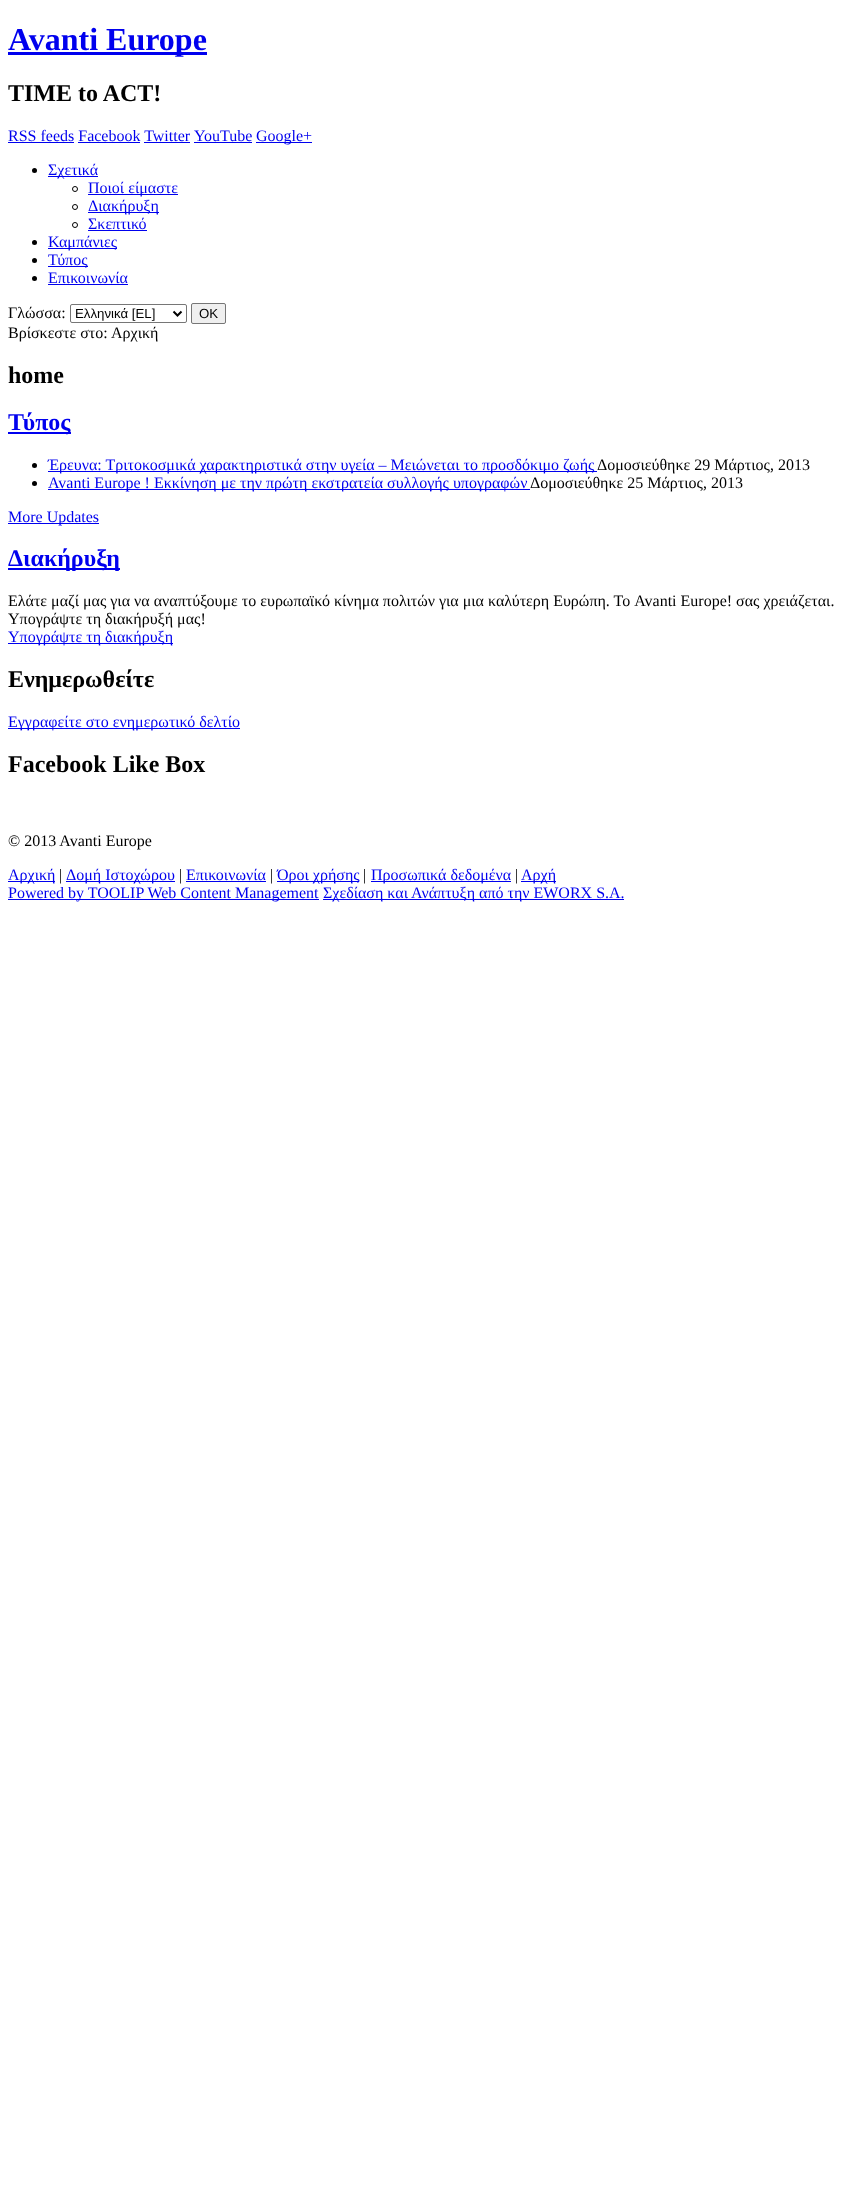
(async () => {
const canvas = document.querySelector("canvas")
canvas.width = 861
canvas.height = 2186
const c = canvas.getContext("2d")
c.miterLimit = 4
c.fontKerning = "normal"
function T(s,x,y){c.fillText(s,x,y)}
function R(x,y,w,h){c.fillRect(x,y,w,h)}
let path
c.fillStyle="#fff"
R(0,0,861,2186)
c.fillStyle="#00e"
R(8,52,199,3)
c.font="bold 32px Liberation Serif"
T("Avanti Europe",8,50)
c.font="bold 24px Liberation Serif"
c.fillStyle="#000"
T("TIME to ACT!",8,101)
c.font="16px Liberation Serif"
c.fillStyle="#00e"
T("RSS feeds Facebook Twitter",8,141)
R(8,142,66,1)
T("YouTube",194,141)
R(194,142,58,1)
R(256,142,56,1)
T("Google+",256,141)
R(78,142,62,1)
R(144,142,46,1)
c.fillStyle="#000"
c.beginPath()
c.arc(34.5,170.5,2.5,0,7)
c.fill()
c.fillStyle="#00e"
R(48,176,50,1)
T("Σχετικά",48,175)
c.beginPath()
c.arc(75,189,2.5,0,7)
c.strokeStyle="#000"
c.stroke()
R(88,194,90,1)
T("Ποιοί είμαστε",88,193)
c.beginPath()
c.arc(75,207,2.5,0,7)
c.stroke()
R(88,212,71,1)
T("Διακήρυξη",88,211)
c.beginPath()
c.arc(75,225,2.5,0,7)
c.stroke()
T("Σκεπτικό",88,229)
R(88,230,59,1)
c.fillStyle="#000"
c.beginPath()
c.arc(34.5,242.5,2.5,0,7)
c.fill()
c.fillStyle="#00e"
R(48,248,69,1)
T("Καμπάνιες",48,247)
c.fillStyle="#000"
c.beginPath()
c.arc(34.5,260.5,2.5,0,7)
c.fill()
c.fillStyle="#00e"
R(48,266,40,1)
T("Τύπος",48,265)
c.fillStyle="#000"
c.beginPath()
c.arc(34.5,278.5,2.5,0,7)
c.fill()
c.fillStyle="#00e"
T("Επικοινωνία",48,283)
R(48,284,80,1)
c.fillStyle="#000"
T("Γλώσσα:",8,318)
c.beginPath()
c.roundRect(70.5,304.5,116,18,1.5)
c.strokeStyle="#767676"
c.stroke()
path = new Path2D("M173.5 311.5l4 4l4-4")
c.strokeStyle="#000"
c.lineWidth=2
c.stroke(path)
c.font="13.25px Liberation Sans"
T("Ελληνικά [EL]",75,318)
c.fillStyle="#efefef"
c.beginPath()
c.roundRect(191.5,303.5,34,20,1.5)
c.fill()
c.strokeStyle="#767676"
c.lineWidth=1
c.stroke()
c.fillStyle="#000"
T("ΟΚ",199,318)
c.font="16px Liberation Serif"
T("Βρίσκεστε στο:",8,338)
T("Αρχική",111,338)
c.font="bold 24px Liberation Serif"
T("home",8,383)
c.fillStyle="#00e"
R(8,432,63,2)
T("Τύπος",8,430)
c.fillStyle="#000"
c.beginPath()
c.arc(34.5,465.5,2.5,0,7)
c.fill()
c.fillStyle="#00e"
R(48,471,549,1)
c.font="16px Liberation Serif"
T("Έρευνα: Τριτοκοσμικά χαρακτηριστικά στην υγεία – Μειώνεται το προσδόκιμο ζωής",48,470)
c.fillStyle="#000"
T("Δομοσιεύθηκε 29 Μάρτιος, 2013",597,470)
c.beginPath()
c.arc(34.5,483.5,2.5,0,7)
c.fill()
c.fillStyle="#00e"
R(48,489,482,1)
T("Avanti Europe ! Εκκίνηση με την πρώτη εκστρατεία συλλογής υπογραφών",48,488)
c.fillStyle="#000"
T("Δομοσιεύθηκε 25 Μάρτιος, 2013",530,488)
c.fillStyle="#00e"
R(8,523,91,1)
T("More Updates",8,522)
R(8,568,112,2)
c.font="bold 24px Liberation Serif"
T("Διακήρυξη",8,566)
c.font="16px Liberation Serif"
c.fillStyle="#000"
T("Ελάτε μαζί μας για να αναπτύξουμε το ευρωπαϊκό κίνημα πολιτών για μια καλύτερη Ευρώπη. Το Avanti Europe! σας χρειάζεται.",8,606)
T("Υπογράψτε τη διακήρυξή μας!",8,624)
c.fillStyle="#00e"
R(8,643,165,1)
T("Υπογράψτε τη διακήρυξη",8,642)
c.font="bold 24px Liberation Serif"
c.fillStyle="#000"
T("Ενημερωθείτε",8,687)
c.fillStyle="#00e"
R(8,728,232,1)
c.font="16px Liberation Serif"
T("Εγγραφείτε στο ενημερωτικό δελτίο",8,727)
c.font="bold 24px Liberation Serif"
c.fillStyle="#000"
T("Facebook Like Box",8,772)
c.font="16px Liberation Serif"
T("© 2013 Avanti Europe",8,846)
c.fillStyle="#00e"
R(8,881,47,1)
T("Αρχική",8,880)
c.fillStyle="#000"
T("|",59,880)
c.fillStyle="#00e"
R(66,881,109,1)
T("Δομή Ιστοχώρου",66,880)
c.fillStyle="#000"
T("|",179,880)
c.fillStyle="#00e"
T("Επικοινωνία",186,880)
R(186,881,80,1)
c.fillStyle="#000"
T("|",270,880)
c.fillStyle="#00e"
R(277,881,82,1)
T("Όροι χρήσης",277,880)
c.fillStyle="#000"
T("|",363,880)
c.fillStyle="#00e"
R(371,881,140,1)
T("Προσωπικά δεδομένα",371,880)
c.fillStyle="#000"
T("|",515,880)
c.fillStyle="#00e"
R(521,881,35,1)
T("Αρχή",521,880)
R(8,899,311,1)
T("Powered by TOOLIP Web Content Management",8,898)
R(323,899,301,1)
T("Σχεδίαση και Ανάπτυξη από την EWORX S.A.",323,898)
})()
